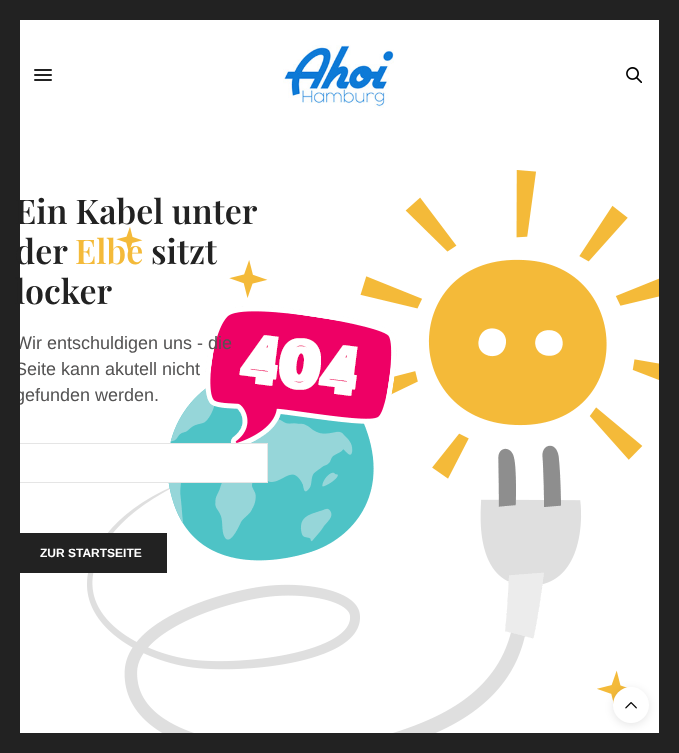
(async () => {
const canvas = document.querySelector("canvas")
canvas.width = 679
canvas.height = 753
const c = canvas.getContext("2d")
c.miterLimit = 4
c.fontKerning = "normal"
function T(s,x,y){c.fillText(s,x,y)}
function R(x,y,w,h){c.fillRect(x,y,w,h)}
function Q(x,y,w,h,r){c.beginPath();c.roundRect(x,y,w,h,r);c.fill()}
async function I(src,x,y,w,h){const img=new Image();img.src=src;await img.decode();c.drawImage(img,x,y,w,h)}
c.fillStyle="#fff"
R(0,0,679,753)
c.fillStyle="#222"
Q(34,69,18,2,1)
Q(34,74,18,2,1)
Q(34,79,18,2,1)
await I("1.png",283,45,111,63)
await I("2.png",626,67,16,16)
await I("3.png",87,170,572,563)
c.font="18px Liberation Sans"
c.fillStyle="#545353"
T("Wir entschuldigen uns - die",15,349)
T("Seite kann akutell nicht",15,375)
T("gefunden werden.",15,401)
c.fillStyle="#fff"
R(167,444,100,38)
c.strokeStyle="#e5e5e5"
c.strokeRect(15.5,443.5,252,39)
c.fillStyle="#222"
R(20,533,147,40)
c.fillStyle="#0000001a"
c.filter="blur(4px)"
c.beginPath()
c.roundRect(613,689,36,36,18)
c.fill()
c.filter="none"
c.fillStyle="#fff"
c.beginPath()
c.arc(631,705,18,0,7)
c.fill()
await I("4.png",625,702,12,7)
c.strokeStyle="#222"
c.lineWidth=20
c.strokeRect(10,10,659,733)
c.font="600 34px Playfair Display"
c.fillStyle="#222"
T("Ein Kabel unter",15,224)
T("der",15,264)
c.fillStyle="#f4ba39"
T("Elbe",75,264)
c.fillStyle="#222"
T("sitzt",151,264)
T("locker",15,304)
c.font="bold 12px Liberation Sans"
c.fillStyle="#fff"
T("ZUR STARTSEITE",40,557)
})()
